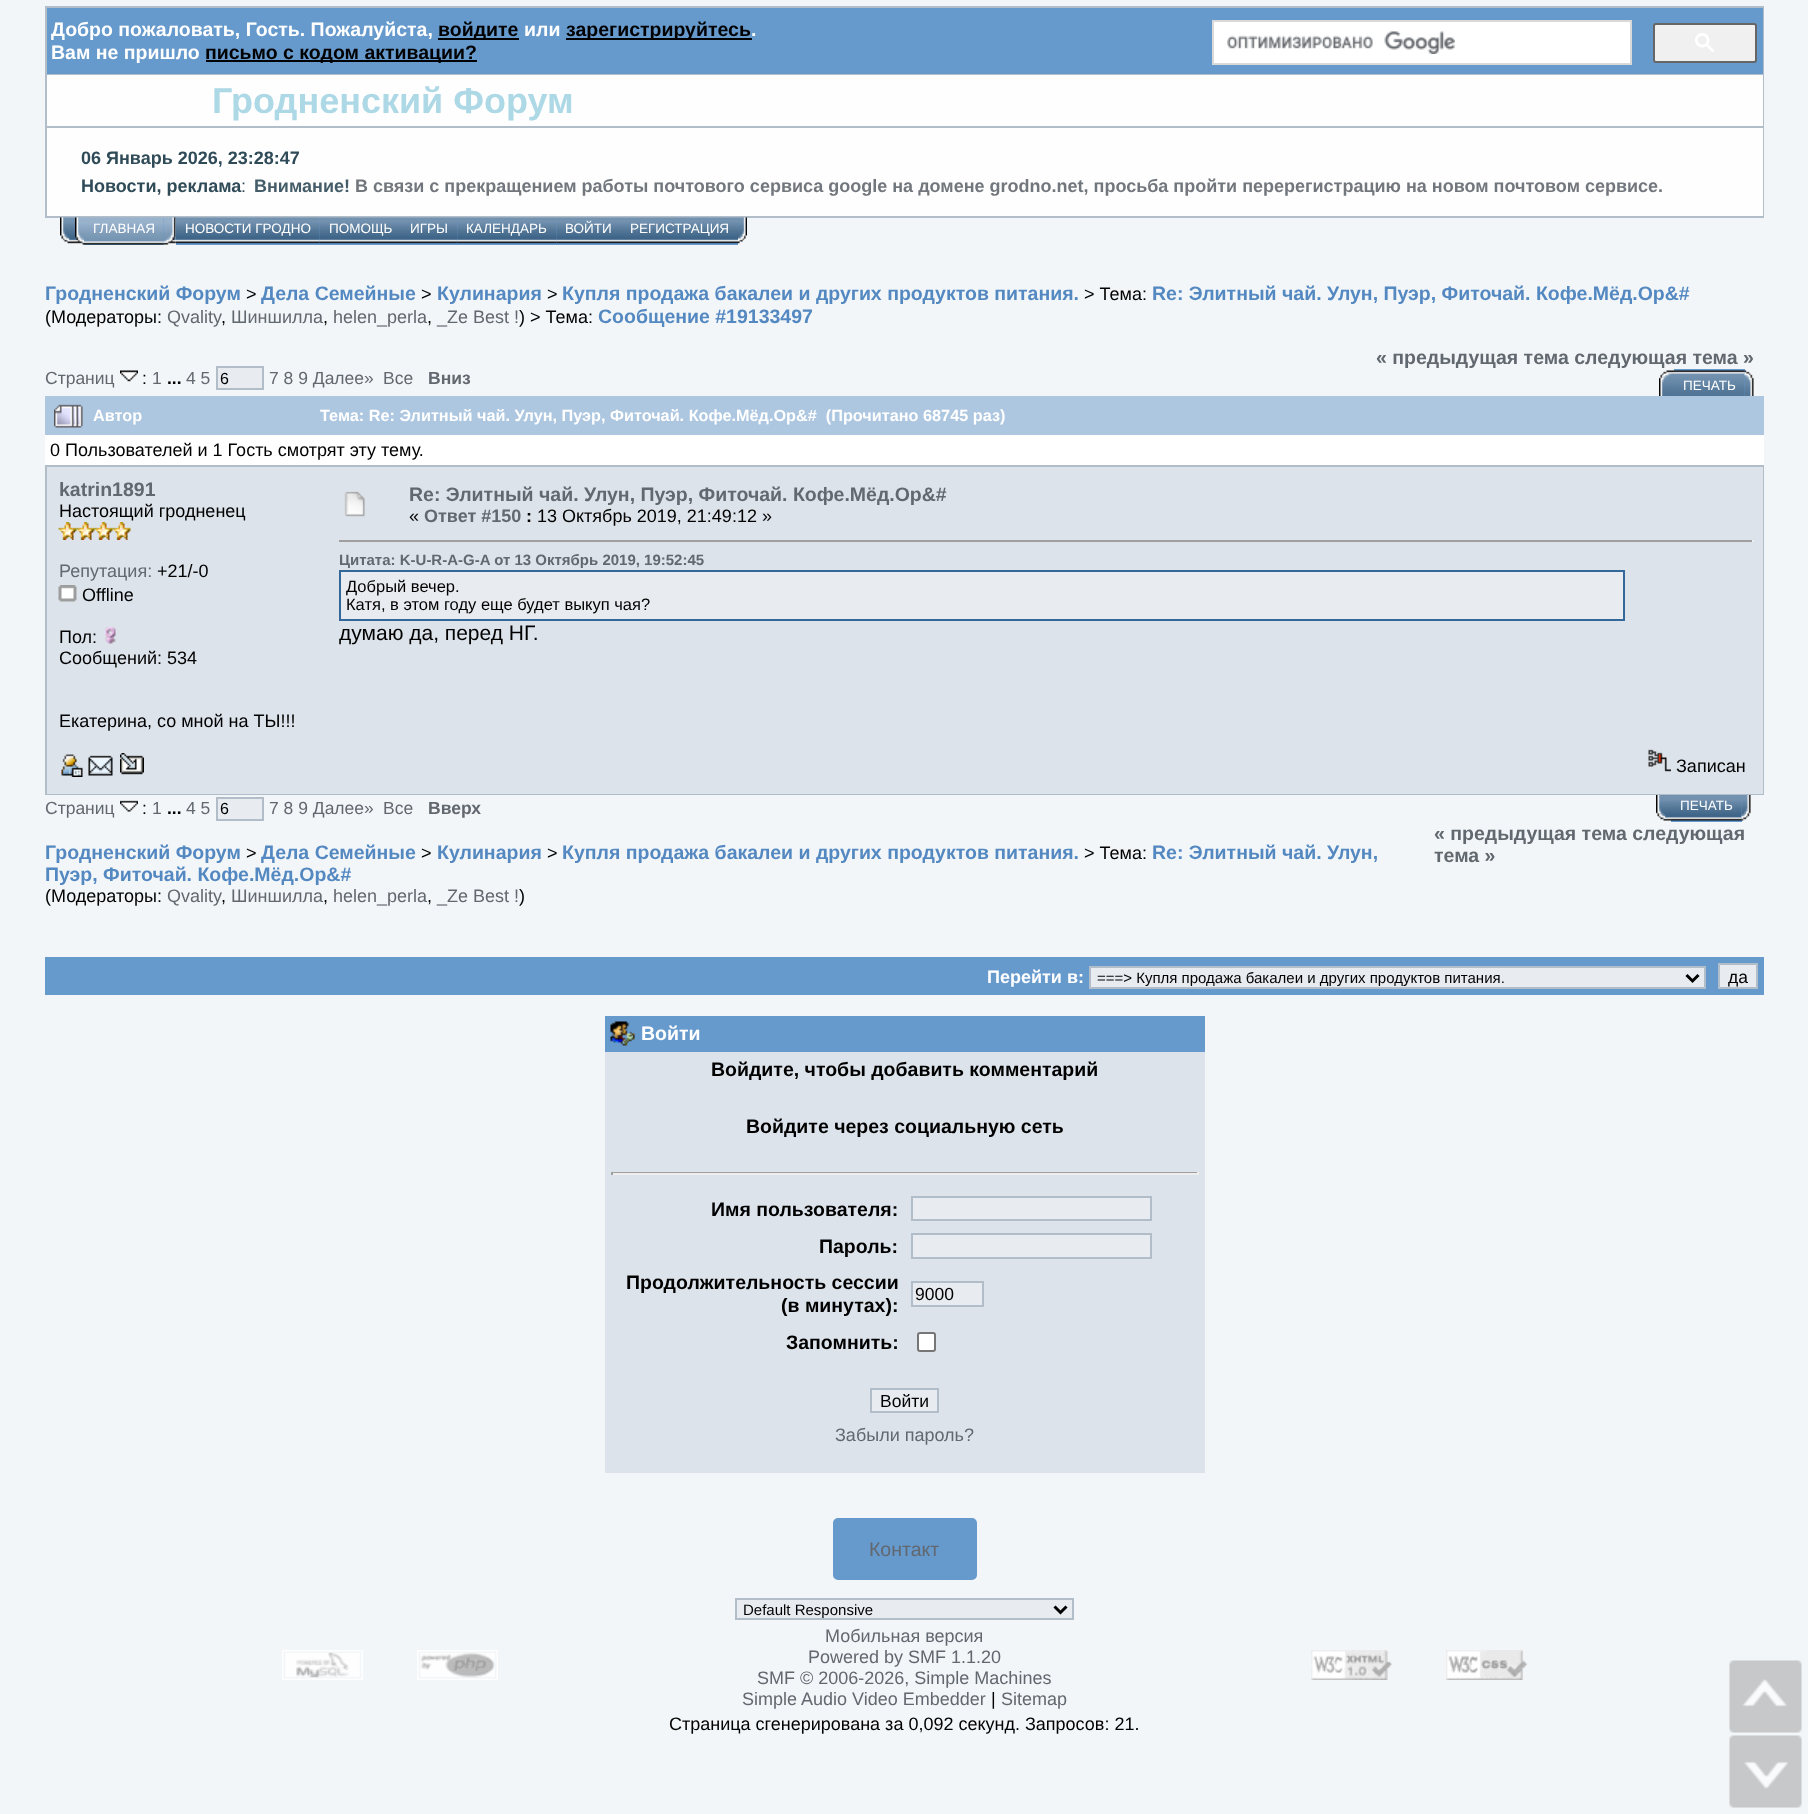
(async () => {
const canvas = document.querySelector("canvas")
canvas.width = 1808
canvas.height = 1814
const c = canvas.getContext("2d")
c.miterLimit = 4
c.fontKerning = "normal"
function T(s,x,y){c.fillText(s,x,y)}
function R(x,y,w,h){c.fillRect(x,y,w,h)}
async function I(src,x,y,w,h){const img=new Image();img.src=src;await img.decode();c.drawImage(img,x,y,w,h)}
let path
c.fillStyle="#f2f6f9"
R(0,0,1808,1814)
c.fillStyle="#b1bdc9"
R(45,6,1719,212)
c.fillStyle="#69c"
R(47,8,1716,66)
c.font="bold 19.5px Liberation Sans"
c.fillStyle="#fff"
T("Добро пожаловать, Гость. Пожалуйста,",51,36)
c.fillStyle="#000"
R(438,38,81,2)
T("войдите",438,36)
c.fillStyle="#fff"
T("или",524,36)
c.fillStyle="#000"
R(566,38,186,2)
T("зарегистрируйтесь",566,36)
c.fillStyle="#fff"
T(".",751,36)
T("Вам не пришло",51,59)
c.fillStyle="#000"
R(206,60,271,2)
T("письмо с кодом активации?",205,59)
c.fillStyle="#fff"
c.beginPath()
c.rect(1213,21,418,43)
c.fill()
c.strokeStyle="#d9d9d9"
c.lineWidth=2
c.stroke()
await I("1.png",1227,31,228,23)
c.fillStyle="#f0f0f0"
c.beginPath()
c.roundRect(1654,24,102,38,2)
c.fill()
c.strokeStyle="#666"
c.stroke()
await I("2.png",1695,33,19,19)
c.fillStyle="#fefefe"
R(47,75,1716,51)
c.font="bold 36px Liberation Sans"
c.fillStyle="#add8e6"
T("Гродненский Форум",212,113)
c.fillStyle="#fefefe"
R(47,128,1716,88)
c.font="bold 18px Liberation Sans"
c.fillStyle="#304b58"
T("06 Январь 2026, 23:28:47",81,164)
T("Новости, реклама",81,192)
c.font="18px Liberation Sans"
T(":",241,192)
c.font="bold 18px Liberation Sans"
c.fillStyle="#455d69"
T("Внимание!",254,192)
c.fillStyle="#72777d"
T("В связи с прекращением работы почтового сервиса google на домене grodno.net, просьба пройти перерегистрацию на новом почтовом сервисе.",355,192)
await I("3.png",60,217,15,27)
await I("4.png",75,217,9,28)
c.fillStyle="#69c"
R(84,218,80,27)
await I("5.png",84,217,80,28)
c.font="13.5px Liberation Sans"
c.fillStyle="#fff"
T("ГЛАВНАЯ",93,233)
await I("6.png",163,217,13,28)
c.fillStyle="#69c"
R(176,218,144,27)
await I("7.png",175,217,145,27)
c.fillStyle="#fff"
T("НОВОСТИ ГРОДНО",185,233)
c.fillStyle="#69c"
R(320,242,82,3)
await I("8.png",319,217,83,27)
c.fillStyle="#fff"
T("ПОМОЩЬ",329,233)
c.fillStyle="#69c"
R(402,218,155,27)
await I("9.png",402,217,56,27)
c.fillStyle="#fff"
T("ИГРЫ",410,233)
await I("10.png",457,217,100,27)
T("КАЛЕНДАРЬ",466,233)
c.fillStyle="#69c"
R(557,242,181,3)
await I("11.png",556,217,65,27)
c.fillStyle="#fff"
T("ВОЙТИ",565,233)
await I("12.png",621,217,117,27)
T("РЕГИСТРАЦИЯ",630,233)
await I("13.png",738,217,9,27)
c.font="bold 19.5px Liberation Sans"
c.fillStyle="#5488c1"
T("Гродненский Форум",45,300)
c.font="18px Liberation Sans"
c.fillStyle="#000"
T(">",246,300)
c.font="bold 19.5px Liberation Sans"
c.fillStyle="#5488c1"
T("Дела Семейные",261,300)
c.font="18px Liberation Sans"
c.fillStyle="#000"
T(">",421,300)
c.font="bold 19.5px Liberation Sans"
c.fillStyle="#5488c1"
T("Кулинария",437,300)
c.font="18px Liberation Sans"
c.fillStyle="#000"
T(">",547,300)
c.font="bold 19.5px Liberation Sans"
c.fillStyle="#5488c1"
T("Купля продажа бакалеи и других продуктов питания.",562,300)
c.font="18px Liberation Sans"
c.fillStyle="#000"
T("> Тема:",1084,300)
c.font="bold 19.5px Liberation Sans"
c.fillStyle="#5488c1"
T("Re: Элитный чай. Улун, Пуэр, Фиточай. Кофе.Мёд.Ор&#",1152,300)
c.font="18px Liberation Sans"
c.fillStyle="#000"
T("(Модераторы:",45,323)
c.fillStyle="#62686f"
T("Qvality",167,323)
c.fillStyle="#000"
T(",",221,323)
c.fillStyle="#62686f"
T("Шиншилла",231,323)
c.fillStyle="#000"
T(",",323,323)
c.fillStyle="#62686f"
T("helen_perla",333,323)
c.fillStyle="#000"
T(",",427,323)
c.fillStyle="#62686f"
T("_Ze Best !",437,323)
c.fillStyle="#000"
T(") > Тема:",519,323)
c.font="bold 19.5px Liberation Sans"
c.fillStyle="#5488c1"
T("Сообщение #19133497",598,323)
c.font="17.5px Liberation Sans"
c.fillStyle="#62686f"
T("Страниц",45,384)
await I("14.png",120,370,18,12)
c.fillStyle="#000"
T(":",142,384)
c.fillStyle="#62686f"
T("1",152,384)
c.font="bold 17.5px Liberation Sans"
c.fillStyle="#000"
T("...",167,384)
c.font="17.5px Liberation Sans"
c.fillStyle="#62686f"
T("4 5",186,384)
c.fillStyle="#e8ebef"
c.beginPath()
c.rect(217,367,46,22)
c.fill()
c.strokeStyle="#b1bdc9"
c.stroke()
c.font="16px Liberation Sans"
c.fillStyle="#000"
T("6",220,384)
c.font="17.5px Liberation Sans"
c.fillStyle="#62686f"
T("7 8 9 Далее»",269,384)
T("Все",383,384)
c.font="bold 17.5px Liberation Sans"
T("Вниз",428,384)
c.font="bold 19.5px Liberation Sans"
T("« предыдущая тема следующая тема »",1376,364)
await I("15.png",1659,370,15,26)
c.fillStyle="#69c"
R(1674,369,71,27)
await I("16.png",1674,370,71,26)
c.font="13.5px Liberation Sans"
c.fillStyle="#fff"
T("ПЕЧАТЬ",1683,390)
await I("17.png",1744,370,10,26)
R(45,435,1719,30)
c.fillStyle="#adc7e1"
R(45,396,1719,39)
await I("18.png",54,404,29,24)
c.font="bold 16.25px Liberation Sans"
c.fillStyle="#fff"
T("Автор",93,421)
T("Тема: Re: Элитный чай. Улун, Пуэр, Фиточай. Кофе.Мёд.Ор&#  (Прочитано 68745 раз)",320,421)
c.font="18px Liberation Sans"
c.fillStyle="#000"
T("0 Пользователей и 1 Гость смотрят эту тему.",50,456)
c.fillStyle="#b1bdc9"
R(45,465,1719,330)
c.fillStyle="#dde3eb"
R(47,467,1716,327)
c.font="bold 19.5px Liberation Sans"
c.fillStyle="#62686f"
T("katrin1891",59,496)
c.font="18px Liberation Sans"
c.fillStyle="#000"
T("Настоящий гродненец",59,517)
await I("19.png",58,522,19,18)
await I("20.png",76,522,19,18)
await I("20.png",94,522,19,18)
await I("20.png",112,522,19,18)
c.fillStyle="#62686f"
T("Репутация:",59,577)
c.fillStyle="#000"
T("+21/-0",157,577)
await I("21.png",58,585,19,17)
T("Offline",82,601)
T("Пол:",59,643)
await I("22.png",105,627,11,17)
T("Сообщений: 534",59,664)
T("Екатерина, со мной на ТЫ!!!",59,727)
await I("23.png",61,754,22,23)
await I("24.png",88,755,25,21)
await I("25.png",120,753,24,22)
await I("26.png",344,491,21,26)
c.font="bold 19.5px Liberation Sans"
c.fillStyle="#62686f"
T("Re: Элитный чай. Улун, Пуэр, Фиточай. Кофе.Мёд.Ор&#",409,501)
c.font="18px Liberation Sans"
c.fillStyle="#000"
T("«",409,522)
c.font="bold 18px Liberation Sans"
c.fillStyle="#62686f"
T("Ответ #150",424,522)
c.fillStyle="#000"
T(":",526,522)
c.font="18px Liberation Sans"
T("13 Октябрь 2019, 21:49:12 »",537,522)
c.fillStyle="#9f9f9f"
R(339,540,1415,2)
c.fillStyle="#eee"
R(1752,540,2,2)
c.font="bold 15px Liberation Sans"
c.fillStyle="#62686f"
T("Цитата: K-U-R-A-G-A от 13 Октябрь 2019, 19:52:45",339,565)
c.fillStyle="#e8ebef"
c.beginPath()
c.rect(340,571,1284,49)
c.fill()
c.strokeStyle="#34689a"
c.stroke()
c.font="16.5px Liberation Sans"
c.fillStyle="#000"
T("Добрый вечер.",346,592)
T("Катя, в этом году еще будет выкуп чая?",346,610)
c.font="21px Liberation Sans"
T("думаю да, перед НГ.",339,640)
await I("27.png",1648,749,23,23)
c.font="18px Liberation Sans"
T("Записан",1676,772)
c.font="17.5px Liberation Sans"
c.fillStyle="#62686f"
T("Страниц",45,814)
await I("28.png",120,800,18,12)
c.fillStyle="#000"
T(":",142,814)
c.fillStyle="#62686f"
T("1",152,814)
c.font="bold 17.5px Liberation Sans"
c.fillStyle="#000"
T("...",167,814)
c.font="17.5px Liberation Sans"
c.fillStyle="#62686f"
T("4 5",186,814)
c.fillStyle="#e8ebef"
c.beginPath()
c.rect(217,798,46,22)
c.fill()
c.strokeStyle="#b1bdc9"
c.stroke()
c.font="16px Liberation Sans"
c.fillStyle="#000"
T("6",220,814)
c.font="17.5px Liberation Sans"
c.fillStyle="#62686f"
T("7 8 9 Далее»",269,814)
T("Все",383,814)
c.font="bold 17.5px Liberation Sans"
T("Вверх",428,814)
await I("29.png",1656,795,15,26)
c.fillStyle="#69c"
R(1671,795,71,27)
await I("30.png",1671,795,71,26)
c.font="13.5px Liberation Sans"
c.fillStyle="#fff"
T("ПЕЧАТЬ",1680,810)
await I("31.png",1741,795,10,26)
c.font="bold 19.5px Liberation Sans"
c.fillStyle="#62686f"
T("« предыдущая тема следующая",1434,840)
c.fillStyle="#5488c1"
T("Гродненский Форум",45,859)
c.font="18px Liberation Sans"
c.fillStyle="#000"
T(">",246,859)
c.font="bold 19.5px Liberation Sans"
c.fillStyle="#5488c1"
T("Дела Семейные",261,859)
c.font="18px Liberation Sans"
c.fillStyle="#000"
T(">",421,859)
c.font="bold 19.5px Liberation Sans"
c.fillStyle="#5488c1"
T("Кулинария",437,859)
c.font="18px Liberation Sans"
c.fillStyle="#000"
T(">",547,859)
c.font="bold 19.5px Liberation Sans"
c.fillStyle="#5488c1"
T("Купля продажа бакалеи и других продуктов питания.",562,859)
c.font="18px Liberation Sans"
c.fillStyle="#000"
T("> Тема:",1084,859)
c.font="bold 19.5px Liberation Sans"
c.fillStyle="#5488c1"
T("Re: Элитный чай. Улун,",1152,859)
T("Пуэр, Фиточай. Кофе.Мёд.Ор&#",45,881)
c.font="18px Liberation Sans"
c.fillStyle="#000"
T("(Модераторы:",45,902)
c.fillStyle="#62686f"
T("Qvality",167,902)
c.fillStyle="#000"
T(",",221,902)
c.fillStyle="#62686f"
T("Шиншилла",231,902)
c.fillStyle="#000"
T(",",323,902)
c.fillStyle="#62686f"
T("helen_perla",333,902)
c.fillStyle="#000"
T(",",427,902)
c.fillStyle="#62686f"
T("_Ze Best !",437,902)
c.fillStyle="#000"
T(")",519,902)
c.font="bold 19.5px Liberation Sans"
c.fillStyle="#62686f"
T("тема »",1434,862)
c.fillStyle="#69c"
R(45,957,1719,38)
c.font="bold 18px Liberation Sans"
c.fillStyle="#fff"
T("Перейти в:",987,983)
c.fillStyle="#e8ebef"
c.beginPath()
c.rect(1090,967,615,21)
c.fill()
c.stroke()
path = new Path2D("M1686.5 975l6 6l6-6")
c.strokeStyle="#000"
c.lineWidth=3
c.stroke(path)
c.font="15px Liberation Sans"
c.fillStyle="#000"
T("===> Купля продажа бакалеи и других продуктов питания.",1097,983)
c.fillStyle="#e8ebef"
c.beginPath()
c.rect(1719,964,38,24)
c.fill()
c.strokeStyle="#b1bdc9"
c.lineWidth=2
c.stroke()
c.font="17.5px Liberation Sans"
c.fillStyle="#000"
T("да",1728,983)
c.fillStyle="#69c"
R(605,1016,600,36)
await I("32.png",610,1021,25,25)
c.font="bold 19.5px Liberation Sans"
c.fillStyle="#fff"
T("Войти",641,1040)
c.fillStyle="#dde3eb"
R(605,1052,600,421)
c.fillStyle="#000"
T("Войдите, чтобы добавить комментарий",711,1076)
T("Войдите через социальную сеть",746,1133)
c.fillStyle="#9f9f9f"
R(611,1172,588,1)
c.fillStyle="#eee"
R(1197,1172,2,3)
R(611,1173,588,2)
c.fillStyle="#9f9f9f"
R(611,1172,2,3)
c.fillStyle="#000"
T("Имя пользователя:",711,1216)
c.fillStyle="#e8ebef"
c.beginPath()
c.rect(912,1197,239,23)
c.fill()
c.stroke()
c.fillStyle="#000"
T("Пароль:",819,1253)
c.fillStyle="#e8ebef"
c.beginPath()
c.rect(912,1234,239,24)
c.fill()
c.stroke()
c.fillStyle="#000"
T("Продолжительность сессии",626,1289)
T("(в минутах):",781,1312)
c.fillStyle="#e8ebef"
c.beginPath()
c.rect(912,1282,71,24)
c.fill()
c.stroke()
c.font="17.5px Liberation Sans"
c.fillStyle="#000"
T("9000",915,1300)
c.font="bold 19.5px Liberation Sans"
T("Запомнить:",786,1349)
c.fillStyle="#fff"
c.beginPath()
c.roundRect(918,1333,17,18,2)
c.fill()
c.strokeStyle="#767676"
c.stroke()
c.fillStyle="#e8ebef"
c.beginPath()
c.rect(871,1389,67,23)
c.fill()
c.strokeStyle="#b1bdc9"
c.stroke()
c.font="17.5px Liberation Sans"
c.fillStyle="#000"
T("Войти",880,1407)
c.font="18px Liberation Sans"
c.fillStyle="#62686f"
T("Забыли пароль?",835,1441)
c.fillStyle="#69c"
c.beginPath()
c.roundRect(834,1519,142,60,4)
c.fill()
c.strokeStyle="#69c"
c.stroke()
c.font="19.5px Liberation Sans"
c.fillStyle="#62686f"
T("Контакт",869,1556)
c.fillStyle="#e8ebef"
c.beginPath()
c.rect(736,1599,337,20)
c.fill()
c.strokeStyle="#b1bdc9"
c.stroke()
path = new Path2D("M1054.5 1606.5l6 6l6-6")
c.strokeStyle="#000"
c.lineWidth=3
c.stroke(path)
c.font="15px Liberation Sans"
c.fillStyle="#000"
T("Default Responsive",743,1615)
await I("33.png",282,1650,81,30)
await I("34.png",417,1650,81,30)
c.font="18px Liberation Sans"
c.fillStyle="#62686f"
T("Мобильная версия",825,1642)
T("Powered by SMF 1.1.20",808,1663)
T("SMF © 2006-2026, Simple Machines",757,1684)
T("Simple Audio Video Embedder",742,1705)
c.fillStyle="#000"
T("|",991,1705)
c.fillStyle="#62686f"
T("Sitemap",1001,1705)
await I("35.png",1311,1650,81,30)
await I("36.png",1446,1650,81,30)
c.fillStyle="#000"
T("Страница сгенерирована за 0,092 секунд. Запросов: 21.",669,1730)
await I("37.png",1729,1660,73,73)
await I("38.png",1729,1735,73,73)
})()
